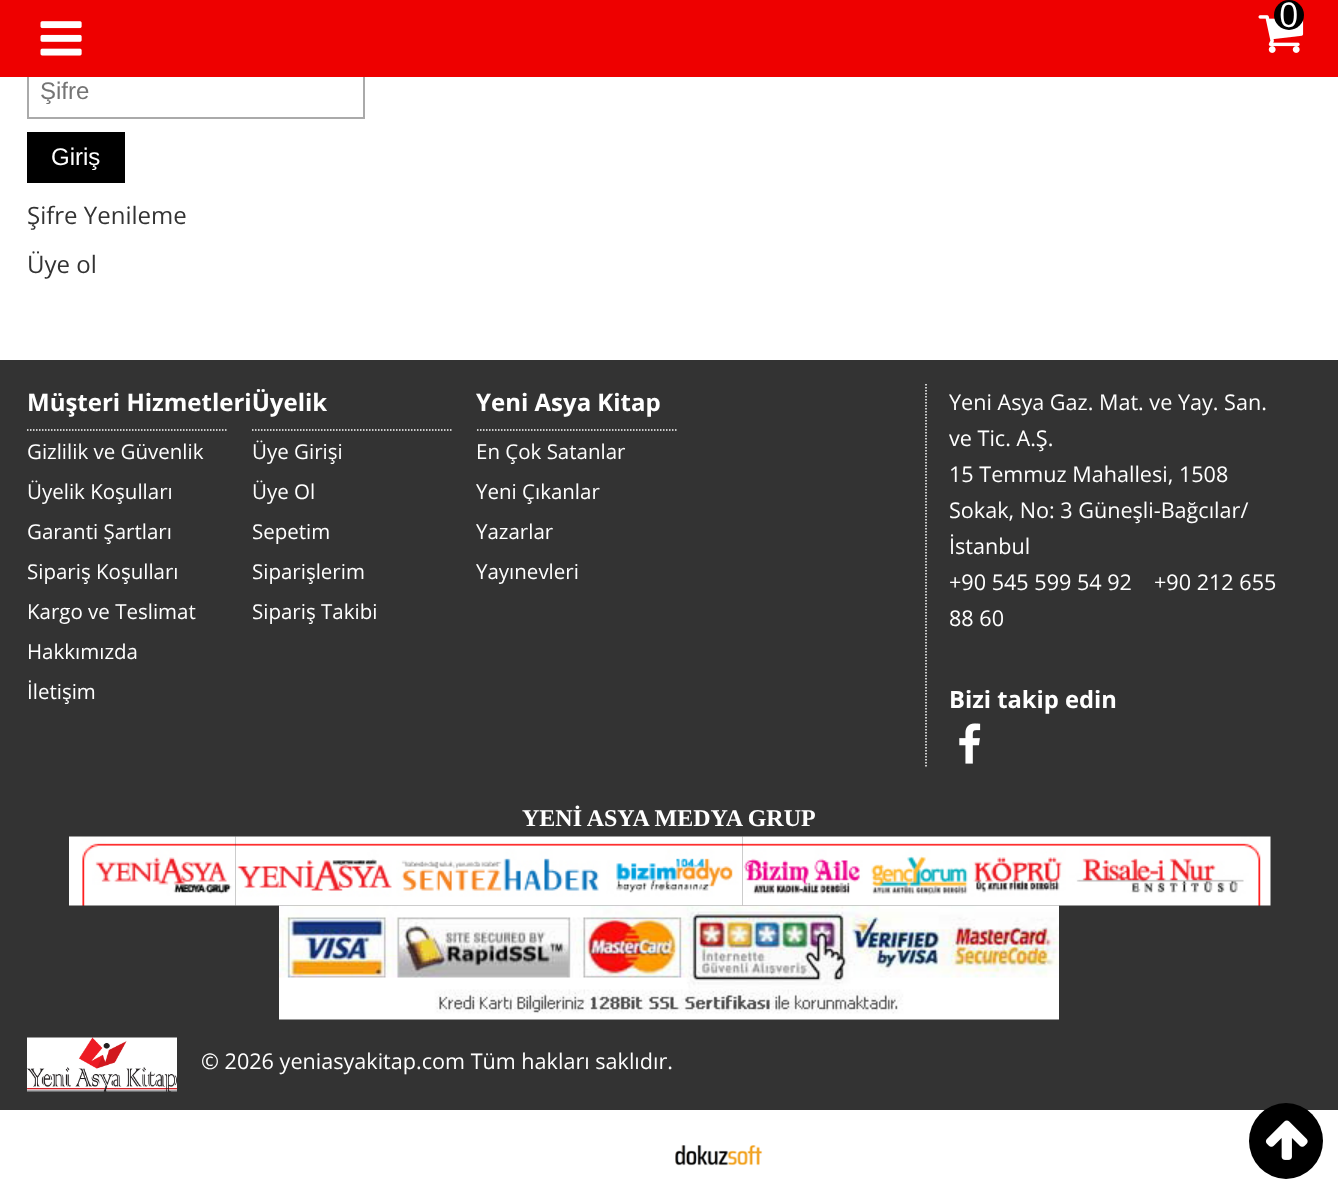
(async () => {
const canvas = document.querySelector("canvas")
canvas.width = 1338
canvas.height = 1194
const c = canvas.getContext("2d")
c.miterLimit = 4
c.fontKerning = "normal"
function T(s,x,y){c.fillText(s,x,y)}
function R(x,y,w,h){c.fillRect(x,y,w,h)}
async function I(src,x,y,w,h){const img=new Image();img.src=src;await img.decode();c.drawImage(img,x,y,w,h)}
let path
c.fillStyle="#fff"
R(0,0,1338,1194)
c.strokeStyle="#aaa"
c.lineWidth=2
c.strokeRect(28,66,336,52)
c.fillStyle="#e00"
R(0,0,1338,77)
await I("1.png",1258,15,46,38)
c.fillStyle="#000"
c.beginPath()
c.arc(1289,15,15,0,7)
c.fill()
c.font="34px Open Sans"
c.fillStyle="#fff"
T("0",1279,27)
await I("2.png",40,21,42,35)
c.font="24px Liberation Sans"
c.fillStyle="#757575"
T("Şifre",40,99)
c.fillStyle="#000"
R(27,132,98,51)
c.fillStyle="#fff"
T("Giriş",51,165)
c.font="24px Open Sans"
c.fillStyle="#333"
T("Şifre Yenileme",27,224)
T("Üye ol",27,273)
R(0,360,1338,750)
c.font="bold 24px Open Sans"
c.fillStyle="#fff"
T("Müşteri HizmetleriÜyelik",27,411)
path = new Path2D("M27 430h201")
c.strokeStyle="#fff"
c.lineWidth=1.5
c.setLineDash([1.5,1.5])
c.stroke(path)
c.font="20.5px Open Sans"
T("Gizlilik ve Güvenlik",27,459)
T("Üyelik Koşulları",27,499)
T("Garanti Şartları",27,539)
T("Sipariş Koşulları",27,579)
T("Kargo ve Teslimat",27,619)
T("Hakkımızda",27,659)
T("İletişim",27,699)
c.font="bold 24px Open Sans"
T("Yeni Asya Kitap",476,411)
path = new Path2D("M477 430h199.5")
c.stroke(path)
c.font="20.5px Open Sans"
T("En Çok Satanlar",476,459)
T("Yeni Çıkanlar",476,499)
T("Yazarlar",476,539)
T("Yayınevleri",476,579)
path = new Path2D("M252 430h201")
c.stroke(path)
T("Üye Girişi",252,459)
T("Üye Ol",252,499)
T("Sepetim",252,539)
T("Siparişlerim",252,579)
T("Sipariş Takibi",252,619)
path = new Path2D("M926 384v384")
c.stroke(path)
c.font="21.6px Open Sans"
T("Yeni Asya Gaz. Mat. ve Yay. San.",949,410)
T("ve Tic. A.Ş.",949,446)
T("15 Temmuz Mahallesi, 1508",949,482)
T("Sokak, No: 3 Güneşli-Bağcılar/",949,518)
T("İstanbul",949,554)
T("+90 545 599 54 92",949,590)
T("+90 212 655",1154,590)
T("88 60",949,626)
c.font="bold 23.75px Open Sans"
T("Bizi takip edin",949,708)
await I("3.png",959,723,22,41)
c.font="bold 24px Liberation Serif"
T("YENİ ASYA MEDYA GRUP",522,826)
await I("4.png",69,836,167,70)
await I("5.png",235,836,161,70)
await I("6.png",396,836,210,70)
await I("7.png",606,836,137,70)
await I("8.png",742,836,128,70)
await I("9.png",870,836,99,70)
await I("10.png",969,836,99,70)
await I("11.png",1068,836,203,70)
await I("12.png",279,905,780,115)
await I("13.png",27,1037,150,55)
c.font="21.6px Open Sans"
T("© 2026 yeniasyakitap.com Tüm hakları saklıdır.",201,1069)
await I("14.png",675,1145,88,21)
c.fillStyle="#000"
c.beginPath()
c.ellipse(1286,1141,37,38,0,0,7)
c.fill()
await I("15.png",1265,1120,43,40)
})()
